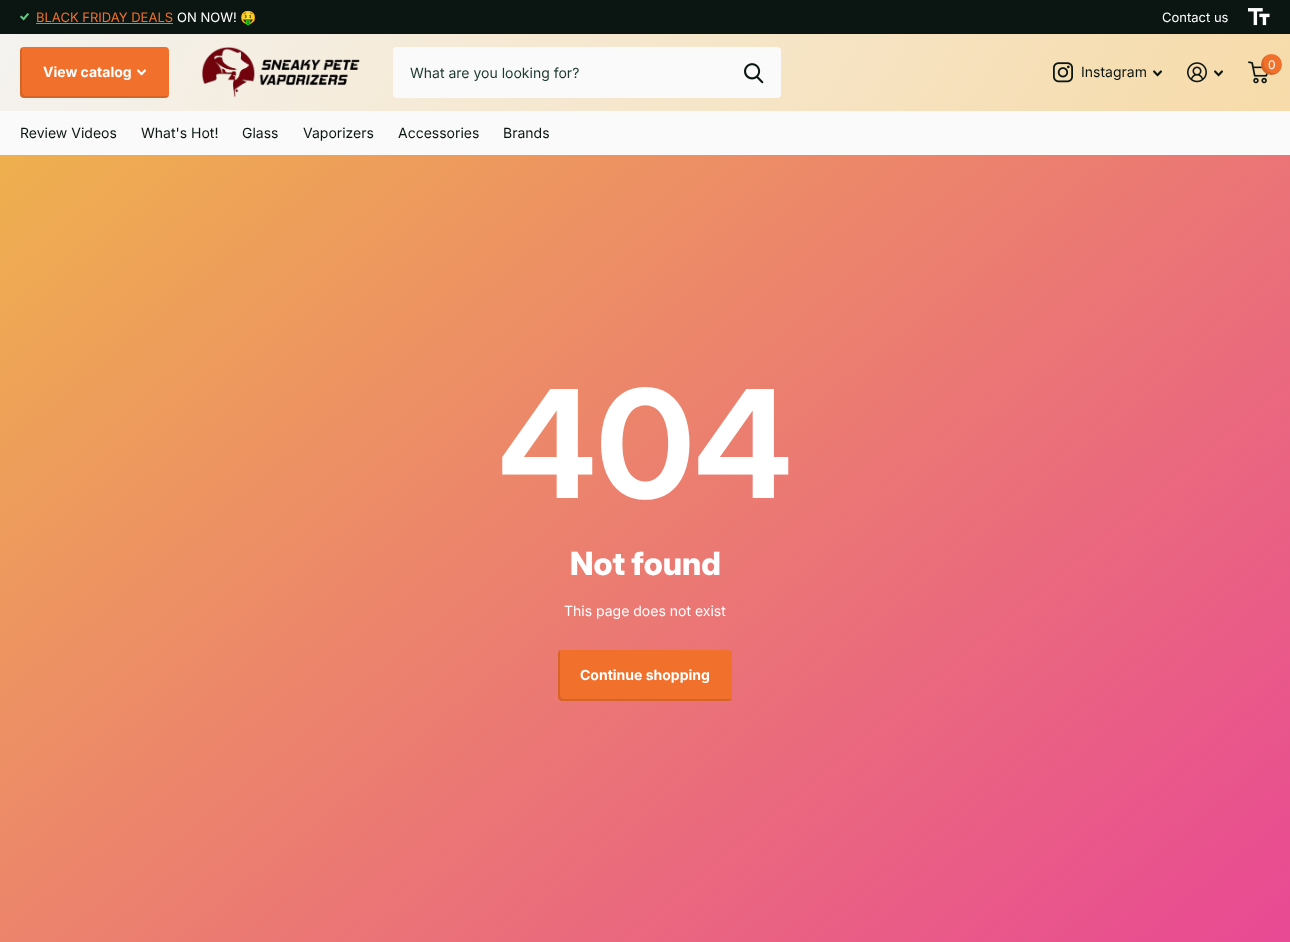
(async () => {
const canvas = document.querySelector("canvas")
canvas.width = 1290
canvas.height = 942
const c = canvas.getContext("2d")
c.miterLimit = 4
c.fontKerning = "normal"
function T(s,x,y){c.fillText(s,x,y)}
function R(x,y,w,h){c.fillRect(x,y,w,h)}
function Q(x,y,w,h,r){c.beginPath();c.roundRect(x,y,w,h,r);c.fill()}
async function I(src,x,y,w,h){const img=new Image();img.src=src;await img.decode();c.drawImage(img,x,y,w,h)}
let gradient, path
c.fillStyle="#fff"
R(0,0,1290,942)
c.fillStyle="#0b1613"
R(0,0,1290,34)
await I("1.png",20,13,9,8)
c.font="13px Inter"
c.fillStyle="#f0702c"
T("BLACK FRIDAY DEALS",36,22)
R(36,23,137,1)
c.fillStyle="#fff"
T("ON NOW!",177,22)
c.font="13px Noto Color Emoji"
T("🤑",240,22)
c.font="13px Inter"
T("Contact us",1162,22)
await I("2.png",1248,8,22,18)
gradient = c.createLinearGradient(80,-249,1211,404)
gradient.addColorStop(0,"#f4f4f4")
gradient.addColorStop(1,"#f7d9a4")
c.fillStyle = gradient
R(0,34,1290,77)
c.fillStyle="#f0702c"
Q(20,47,149,51,4)
c.fillStyle="#0000001a"
path = new Path2D("M22 47c-1 1-2 2-2 4v43c0 2 2 4 4 4h141c2 0 3-1 4-2h-2h-141c-2 0-4-2-4-4v-43z")
c.fill(path)
c.font="bold 14px 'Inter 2'"
c.fillStyle="#fff"
T("View catalog",43,77)
await I("3.png",137,69,9,7)
await I("4.png",201,47,159,51)
c.fillStyle="#fafafa"
Q(393,47,388,51,4)
c.font="14px Inter"
c.fillStyle="#1c3830"
T("What are you looking for?",410,78)
await I("5.png",744,63,20,21)
await I("6.png",1053,62,20,21)
c.fillStyle="#0b1613"
T("Instagram",1081,77)
await I("7.png",1153,70,9,7)
await I("8.png",1187,62,20,21)
await I("9.png",1214,70,9,7)
await I("10.png",1248,61,20,23)
c.fillStyle="#f0702c"
c.beginPath()
c.arc(1271.5,64.5,10.5,0,7)
c.fill()
c.fillStyle="#0000001a"
path = new Path2D("M1279.5 71.5c-9.5 6-21-6.5-13.5-16c-5.5 4-6.5 11.5-2 16.5c4.5 4 11.5 4 15.5-.5z")
c.fill(path)
c.font="12px Inter"
c.fillStyle="#fff"
T("0",1268,69)
c.fillStyle="#fafafa"
R(0,111,1290,44)
c.font="14px Inter"
c.fillStyle="#0b1613"
T("Review Videos",20,138)
T("What's Hot!",141,138)
T("Glass",242,138)
T("Vaporizers",303,138)
T("Accessories",398,138)
T("Brands",503,138)
gradient = c.createLinearGradient(1132,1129,159,-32)
gradient.addColorStop(.04,"#e84a93")
gradient.addColorStop(1,"#efb34c")
c.fillStyle = gradient
R(0,155,1290,787)
c.font="bold 150px Inter"
c.fillStyle="#fff"
T("404",498,498)
c.font="800 32px Inter"
T("Not found",570,575)
c.font="14px Inter"
T("This page does not exist",564,616)
c.fillStyle="#f0702c"
Q(558,650,174,51,4)
c.fillStyle="#0000001a"
path = new Path2D("M560 650c-1 1-2 2-2 4v43c0 2 2 4 4 4h166c2 0 3-1 4-2h-2h-166c-2 0-4-2-4-4v-43z")
c.fill(path)
c.font="bold 14px 'Inter 2'"
c.fillStyle="#fff"
T("Continue shopping",580,680)
})()
